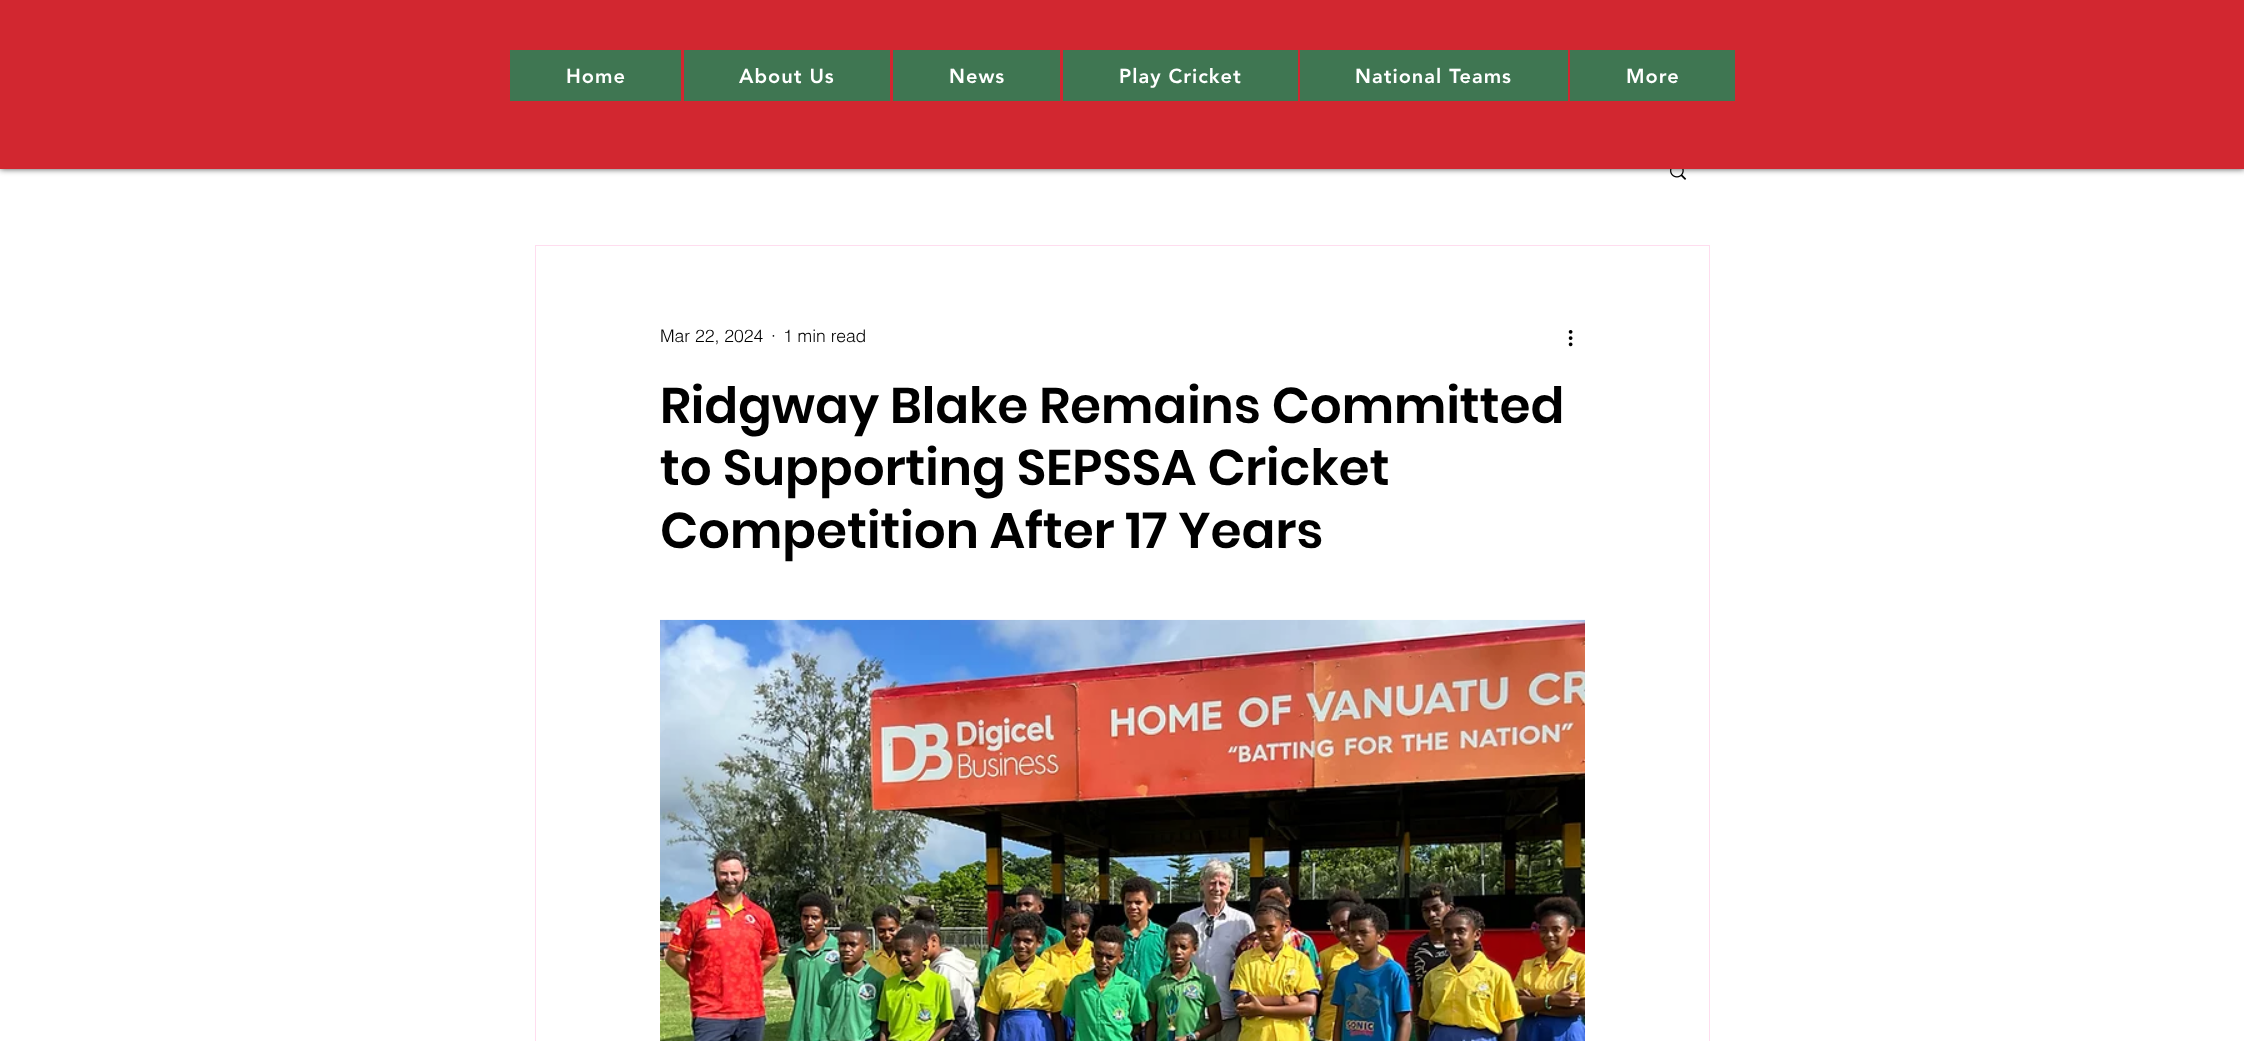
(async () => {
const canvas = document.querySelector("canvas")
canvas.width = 2244
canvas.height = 1041
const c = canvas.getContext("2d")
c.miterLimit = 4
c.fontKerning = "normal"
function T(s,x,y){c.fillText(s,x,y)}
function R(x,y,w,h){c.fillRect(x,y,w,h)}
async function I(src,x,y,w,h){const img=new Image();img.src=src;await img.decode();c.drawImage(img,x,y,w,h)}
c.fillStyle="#fff"
R(0,0,2244,1041)
await I("1.png",1670,169,17,11)
c.fillStyle="#000000b3"
c.filter="blur(3px)"
c.beginPath()
c.rect(0,0,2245,169)
c.fill()
c.filter="none"
c.fillStyle="#d22730"
R(0,0,2244,169)
c.fillStyle="#3f7652"
R(510,50,171,51)
c.letterSpacing="1px"
c.font="900 20px 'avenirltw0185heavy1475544'"
c.fillStyle="#fff"
T("Home",566,83)
c.fillStyle="#3f7652"
R(684,50,206,51)
c.fillStyle="#fff"
T("About Us",739,83)
c.fillStyle="#3f7652"
R(893,50,167,51)
c.fillStyle="#fff"
T("News",949,83)
c.fillStyle="#3f7652"
R(1063,50,235,51)
c.fillStyle="#fff"
T("Play Cricket",1119,83)
c.fillStyle="#3f7652"
R(1300,50,268,51)
c.fillStyle="#fff"
T("National Teams",1355,83)
c.fillStyle="#3f7652"
R(1570,50,165,51)
c.fillStyle="#fff"
T("More",1626,83)
c.strokeStyle="#ffddef"
c.strokeRect(535.5,245.5,1174,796)
c.letterSpacing="0px"
c.font="300 17.5px helvetica"
c.fillStyle="#000"
T("Mar 22, 2024",660,342)
T("·",771,342)
T("1 min read",783,342)
await I("2.png",1568,330,5,17)
c.font="600 50px Poppins"
T("Ridgway Blake Remains Committed",660,423)
T("to Supporting SEPSSA Cricket",660,485)
T("Competition After 17 Years",660,548)
await I("3.png",660,619,925,422)
})()
